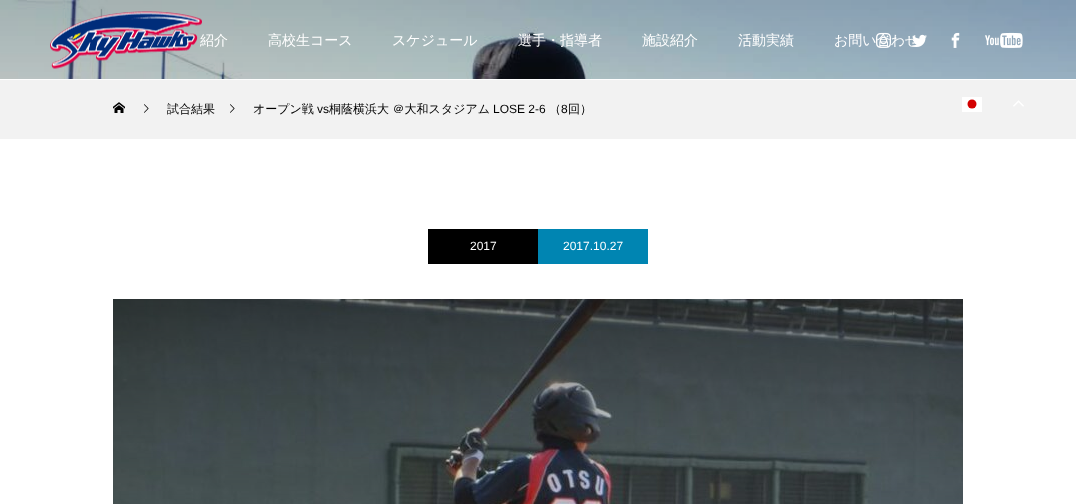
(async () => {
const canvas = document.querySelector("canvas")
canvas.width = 1076
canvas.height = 504
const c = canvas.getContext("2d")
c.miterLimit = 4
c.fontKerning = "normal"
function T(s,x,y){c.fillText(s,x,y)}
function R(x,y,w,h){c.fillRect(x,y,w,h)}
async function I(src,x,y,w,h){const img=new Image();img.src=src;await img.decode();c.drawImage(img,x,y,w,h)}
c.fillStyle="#fff"
R(0,0,1076,504)
await I("1.png",0,0,1076,79)
c.font="500 14px WenQuanYi Zen Hei"
T("紹介",200,45)
await I("2.png",50,11,152,58)
T("高校生コース",268,45)
T("スケジュール",392,45)
T("選手・指導者",518,45)
T("施設紹介",642,45)
T("活動実績",738,45)
T("お問い合わせ",834,45)
await I("3.png",876,32,15,16)
await I("4.png",912,34,15,13)
await I("5.png",951,32,9,16)
await I("6.png",985,32,38,16)
c.fillStyle="#f2f2f2"
R(0,80,1076,59)
await I("7.png",113,102,12,11)
await I("8.png",144,104,5,9)
c.font="500 12px WenQuanYi Zen Hei"
c.fillStyle="#000"
T("試合結果",167,113)
await I("8.png",230,104,5,9)
T("オープン戦",253,113)
c.font="12px Liberation Sans"
T("vs",317,113)
c.font="500 12px WenQuanYi Zen Hei"
T("桐蔭横浜大 ＠大和スタジアム",329,113)
c.font="12px Liberation Sans"
T("LOSE 2-6",493,113)
c.font="500 12px WenQuanYi Zen Hei"
T("（",549,113)
c.font="12px Liberation Sans"
T("8",561,113)
c.font="500 12px WenQuanYi Zen Hei"
T("回）",568,113)
c.fillStyle="#fff"
R(962,97,20,15)
c.fillStyle="#d30000"
c.beginPath()
c.arc(972,104,4.5,0,7)
c.fill()
await I("9.png",1013,100,11,7)
c.fillStyle="#000"
R(428,229,110,35)
c.font="12px Liberation Sans"
c.fillStyle="#fff"
T("2017",470,250)
c.fillStyle="#0085b2"
R(538,229,110,35)
c.fillStyle="#fff"
T("2017.10.27",563,250)
await I("10.png",113,299,850,205)
})()
